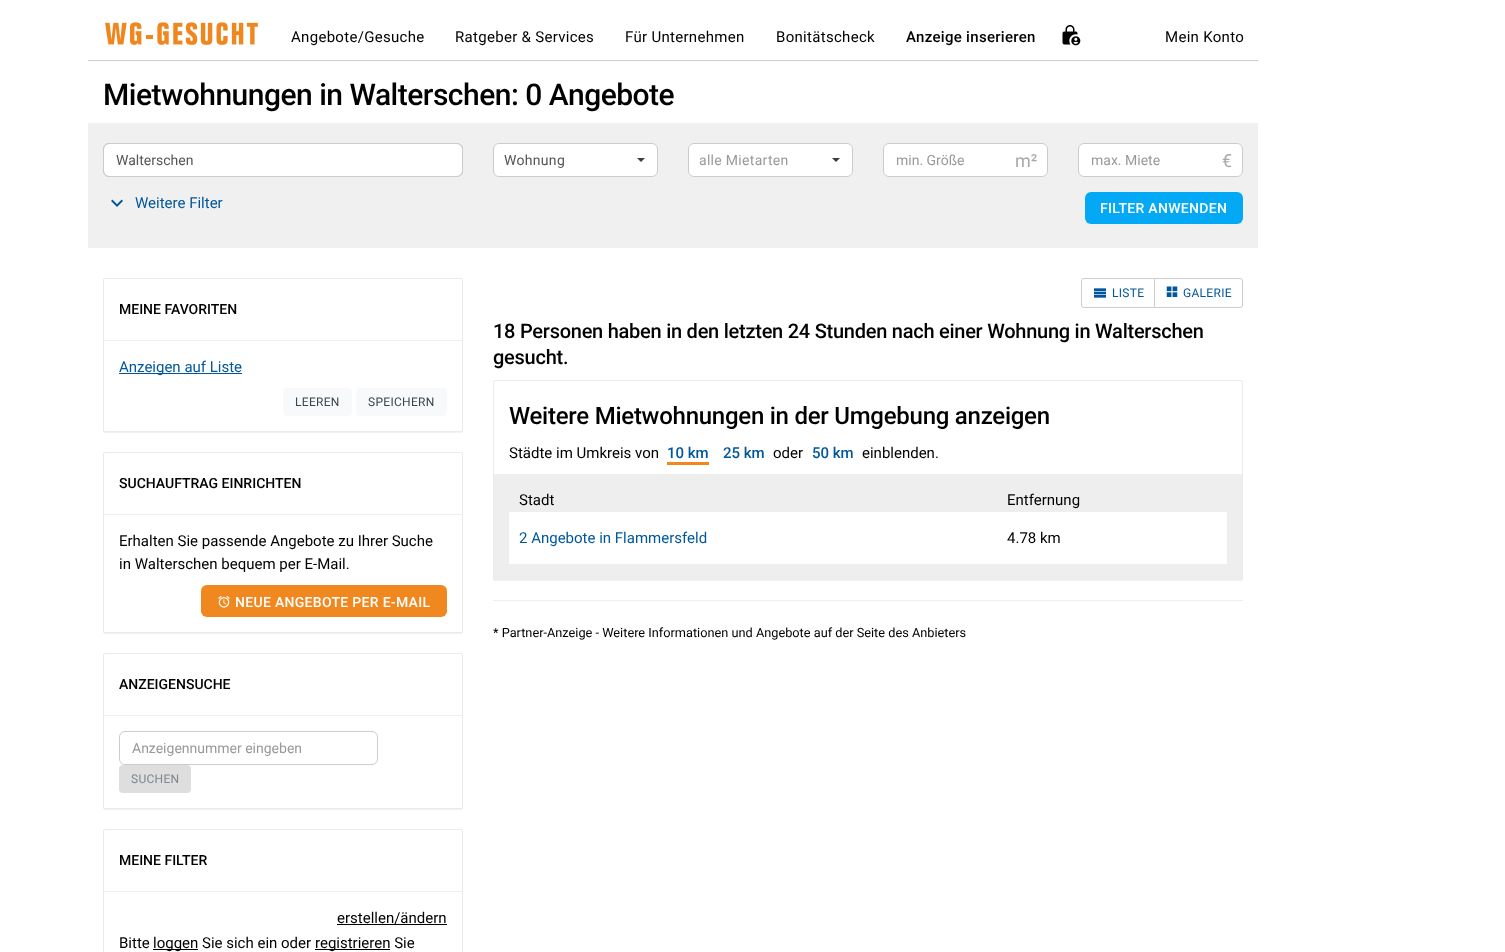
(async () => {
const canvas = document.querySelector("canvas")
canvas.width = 1505
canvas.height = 952
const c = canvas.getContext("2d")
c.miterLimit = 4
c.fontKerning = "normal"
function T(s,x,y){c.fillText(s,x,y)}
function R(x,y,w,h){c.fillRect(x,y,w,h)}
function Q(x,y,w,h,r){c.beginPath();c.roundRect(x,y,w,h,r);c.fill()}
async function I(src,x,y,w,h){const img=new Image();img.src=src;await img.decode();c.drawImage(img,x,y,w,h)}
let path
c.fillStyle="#fff"
R(0,0,1505,952)
c.fillStyle="#ccc"
R(88,60,1170,1)
await I("1.png",105,22,153,23)
c.letterSpacing="0.3px"
c.font="15px Roboto"
c.fillStyle="#000"
T("Angebote/Gesuche",291,42)
T("Ratgeber & Services",455,42)
T("Für Unternehmen",625,42)
T("Bonitätscheck",776,42)
c.font="500 15px Roboto"
T("Anzeige inserieren",906,42)
await I("2.png",1062,25,19,21)
c.font="15px Roboto"
T("Mein Konto",1165,42)
c.letterSpacing="-0.5px"
c.font="500 30px Roboto"
T("Mietwohnungen in Walterschen: 0 Angebote",103,105)
c.fillStyle="#f0f0f0"
R(88,123,1170,125)
c.fillStyle="#fff"
c.beginPath()
c.roundRect(103.5,143.5,359,33,5.5)
c.fill()
c.strokeStyle="#ccc"
c.stroke()
c.beginPath()
c.roundRect(103.5,143.5,359,33,5.5)
c.stroke()
c.letterSpacing="0px"
c.font="14px Roboto"
c.fillStyle="#555"
T("Walterschen",116,165)
c.fillStyle="#fff"
c.beginPath()
c.roundRect(493.5,143.5,164,33,5.5)
c.fill()
c.stroke()
c.letterSpacing="0.3px"
c.fillStyle="#555"
T("Wohnung",504,165)
c.fillStyle="#3c3d3d"
path = new Path2D("M637 158h8l-4 4z")
c.fill(path)
c.fillStyle="#fff"
c.beginPath()
c.roundRect(688.5,143.5,164,33,5.5)
c.fill()
c.stroke()
c.fillStyle="#999"
T("alle Mietarten",699,165)
c.fillStyle="#3c3d3d"
path = new Path2D("M832 158h8l-4 4z")
c.fill(path)
c.fillStyle="#fff"
c.beginPath()
c.roundRect(883.5,143.5,164,33,5.5)
c.fill()
c.stroke()
c.letterSpacing="0px"
c.fillStyle="#999"
T("min. Größe",896,165)
c.font="18px Roboto"
c.fillStyle="#a9a9a9"
T("m²",1015,167)
c.fillStyle="#fff"
c.beginPath()
c.roundRect(1078.5,143.5,164,33,5.5)
c.fill()
c.stroke()
c.font="14px Roboto"
c.fillStyle="#999"
T("max. Miete",1091,165)
c.font="18px Roboto"
c.fillStyle="#a9a9a9"
T("€",1222,167)
await I("3.png",111,199,12,8)
c.font="15px Roboto"
c.fillStyle="#01579b"
T("Weitere Filter",135,208)
c.fillStyle="#03a9f4"
Q(1085,192,158,32,6)
c.letterSpacing="0.3px"
c.font="500 14px Roboto"
c.fillStyle="#fff"
T("FILTER ANWENDEN",1100,213)
c.fillStyle="#0000000d"
c.filter="blur(0.5px)"
c.beginPath()
c.roundRect(103,279,360,154,2)
c.fill()
c.filter="none"
c.fillStyle="#fff"
c.beginPath()
c.roundRect(103.5,278.5,359,153,1.5)
c.fill()
c.strokeStyle="#ebebeb"
c.stroke()
c.fillStyle="#edeff4"
R(104,340,358,1)
c.letterSpacing="0px"
c.fillStyle="#000"
T("MEINE FAVORITEN",119,314)
c.fillStyle="#01579b"
R(119,373,123,1)
c.font="15px Roboto"
T("Anzeigen auf Liste",119,372)
c.fillStyle="#f8f9fa"
Q(283,388,69,28,4)
c.letterSpacing="0.3px"
c.font="12px Roboto"
c.fillStyle="#37474f"
T("LEEREN",295,406)
c.fillStyle="#f8f9fa"
Q(356,388,91,28,4)
c.fillStyle="#37474f"
T("SPEICHERN",368,406)
c.fillStyle="#0000000d"
c.filter="blur(0.5px)"
c.beginPath()
c.roundRect(103,453,360,181,2)
c.fill()
c.filter="none"
c.fillStyle="#fff"
c.beginPath()
c.roundRect(103.5,452.5,359,180,1.5)
c.fill()
c.stroke()
c.fillStyle="#edeff4"
R(104,514,358,1)
c.letterSpacing="0px"
c.font="500 14px Roboto"
c.fillStyle="#000"
T("SUCHAUFTRAG EINRICHTEN",119,488)
c.font="15px Roboto"
T("Erhalten Sie passende Angebote zu Ihrer Suche",119,546)
T("in Walterschen bequem per E-Mail.",119,569)
c.fillStyle="#f0871f"
Q(201,585,246,32,6)
await I("4.png",218,595,12,13)
c.letterSpacing="0.3px"
c.font="500 14px Roboto"
c.fillStyle="#fff"
T("NEUE ANGEBOTE PER E-MAIL",235,607)
c.fillStyle="#0000000d"
c.filter="blur(0.5px)"
c.beginPath()
c.roundRect(103,654,360,156,2)
c.fill()
c.filter="none"
c.fillStyle="#fff"
c.beginPath()
c.roundRect(103.5,653.5,359,155,1.5)
c.fill()
c.stroke()
c.fillStyle="#edeff4"
R(104,715,358,1)
c.letterSpacing="0px"
c.fillStyle="#000"
T("ANZEIGENSUCHE",119,689)
c.beginPath()
c.roundRect(119.5,731.5,258,33,5.5)
c.strokeStyle="#ccc"
c.stroke()
c.font="14px Roboto"
c.fillStyle="#999"
T("Anzeigennummer eingeben",132,753)
c.fillStyle="#dedede"
Q(119,765,72,28,4)
c.letterSpacing="0.3px"
c.font="12px Roboto"
c.fillStyle="#7d878d"
T("SUCHEN",131,783)
c.beginPath()
c.roundRect(103.5,829.5,359,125,1.5)
c.strokeStyle="#ebebeb"
c.stroke()
c.fillStyle="#edeff4"
R(104,891,358,1)
c.letterSpacing="0px"
c.font="500 14px Roboto"
c.fillStyle="#000"
T("MEINE FILTER",119,865)
c.font="15px Roboto"
T("erstellen/ändern",337,923)
R(337,924,110,1)
T("Bitte",119,948)
R(153,949,45,1)
T("loggen Sie sich ein oder",153,948)
R(315,949,75,1)
T("registrieren Sie",315,948)
c.beginPath()
c.roundRect(1081.5,278.5,73,29,[2.5,0,0,2.5])
c.strokeStyle="#ccc"
c.stroke()
await I("5.png",1094,288,12,10)
c.letterSpacing="0.3px"
c.font="12px Roboto"
c.fillStyle="#01579b"
T("LISTE",1112,297)
c.fillStyle="#fff"
c.beginPath()
c.roundRect(1154.5,278.5,88,29,[0,2.5,2.5,0])
c.fill()
c.stroke()
await I("6.png",1166,286,12,11)
c.fillStyle="#01579b"
T("GALERIE",1183,297)
c.letterSpacing="-0.25px"
c.font="500 20px Roboto"
c.fillStyle="#000"
T("18 Personen haben in den letzten 24 Stunden nach einer Wohnung in Walterschen",493,338)
T("gesucht.",493,364)
c.fillStyle="#0000000d"
c.filter="blur(0.5px)"
c.beginPath()
c.roundRect(493,381,750,200,2)
c.fill()
c.filter="none"
c.fillStyle="#fff"
c.beginPath()
c.roundRect(493.5,380.5,749,199,1.5)
c.fill()
c.strokeStyle="#ebebeb"
c.stroke()
c.font="500 24px Roboto"
c.fillStyle="#000"
T("Weitere Mietwohnungen in der Umgebung anzeigen",509,424)
c.letterSpacing="0px"
c.font="15px Roboto"
T("Städte im Umkreis von",509,458)
c.font="500 15px Roboto"
c.fillStyle="#01579b"
T("10 km",667,458)
c.fillStyle="#f0871f"
R(667,462,42,3)
c.fillStyle="#01579b"
T("25 km",723,458)
c.font="15px Roboto"
c.fillStyle="#000"
T("oder",773,458)
c.font="500 15px Roboto"
c.fillStyle="#01579b"
T("50 km",812,458)
c.font="15px Roboto"
c.fillStyle="#000"
T("einblenden.",862,458)
c.fillStyle="#eee"
R(494,474,748,105)
c.fillStyle="#000"
T("Stadt",519,505)
T("Entfernung",1007,505)
c.fillStyle="#fff"
R(509,512,718,52)
c.fillStyle="#01579b"
T("2 Angebote in Flammersfeld",519,543)
c.fillStyle="#000"
T("4.78 km",1007,543)
c.fillStyle="#eee"
R(493,600,750,1)
c.font="12.75px Roboto"
c.fillStyle="#000"
T("* Partner-Anzeige - Weitere Informationen und Angebote auf der Seite des Anbieters",493,637)
})()
